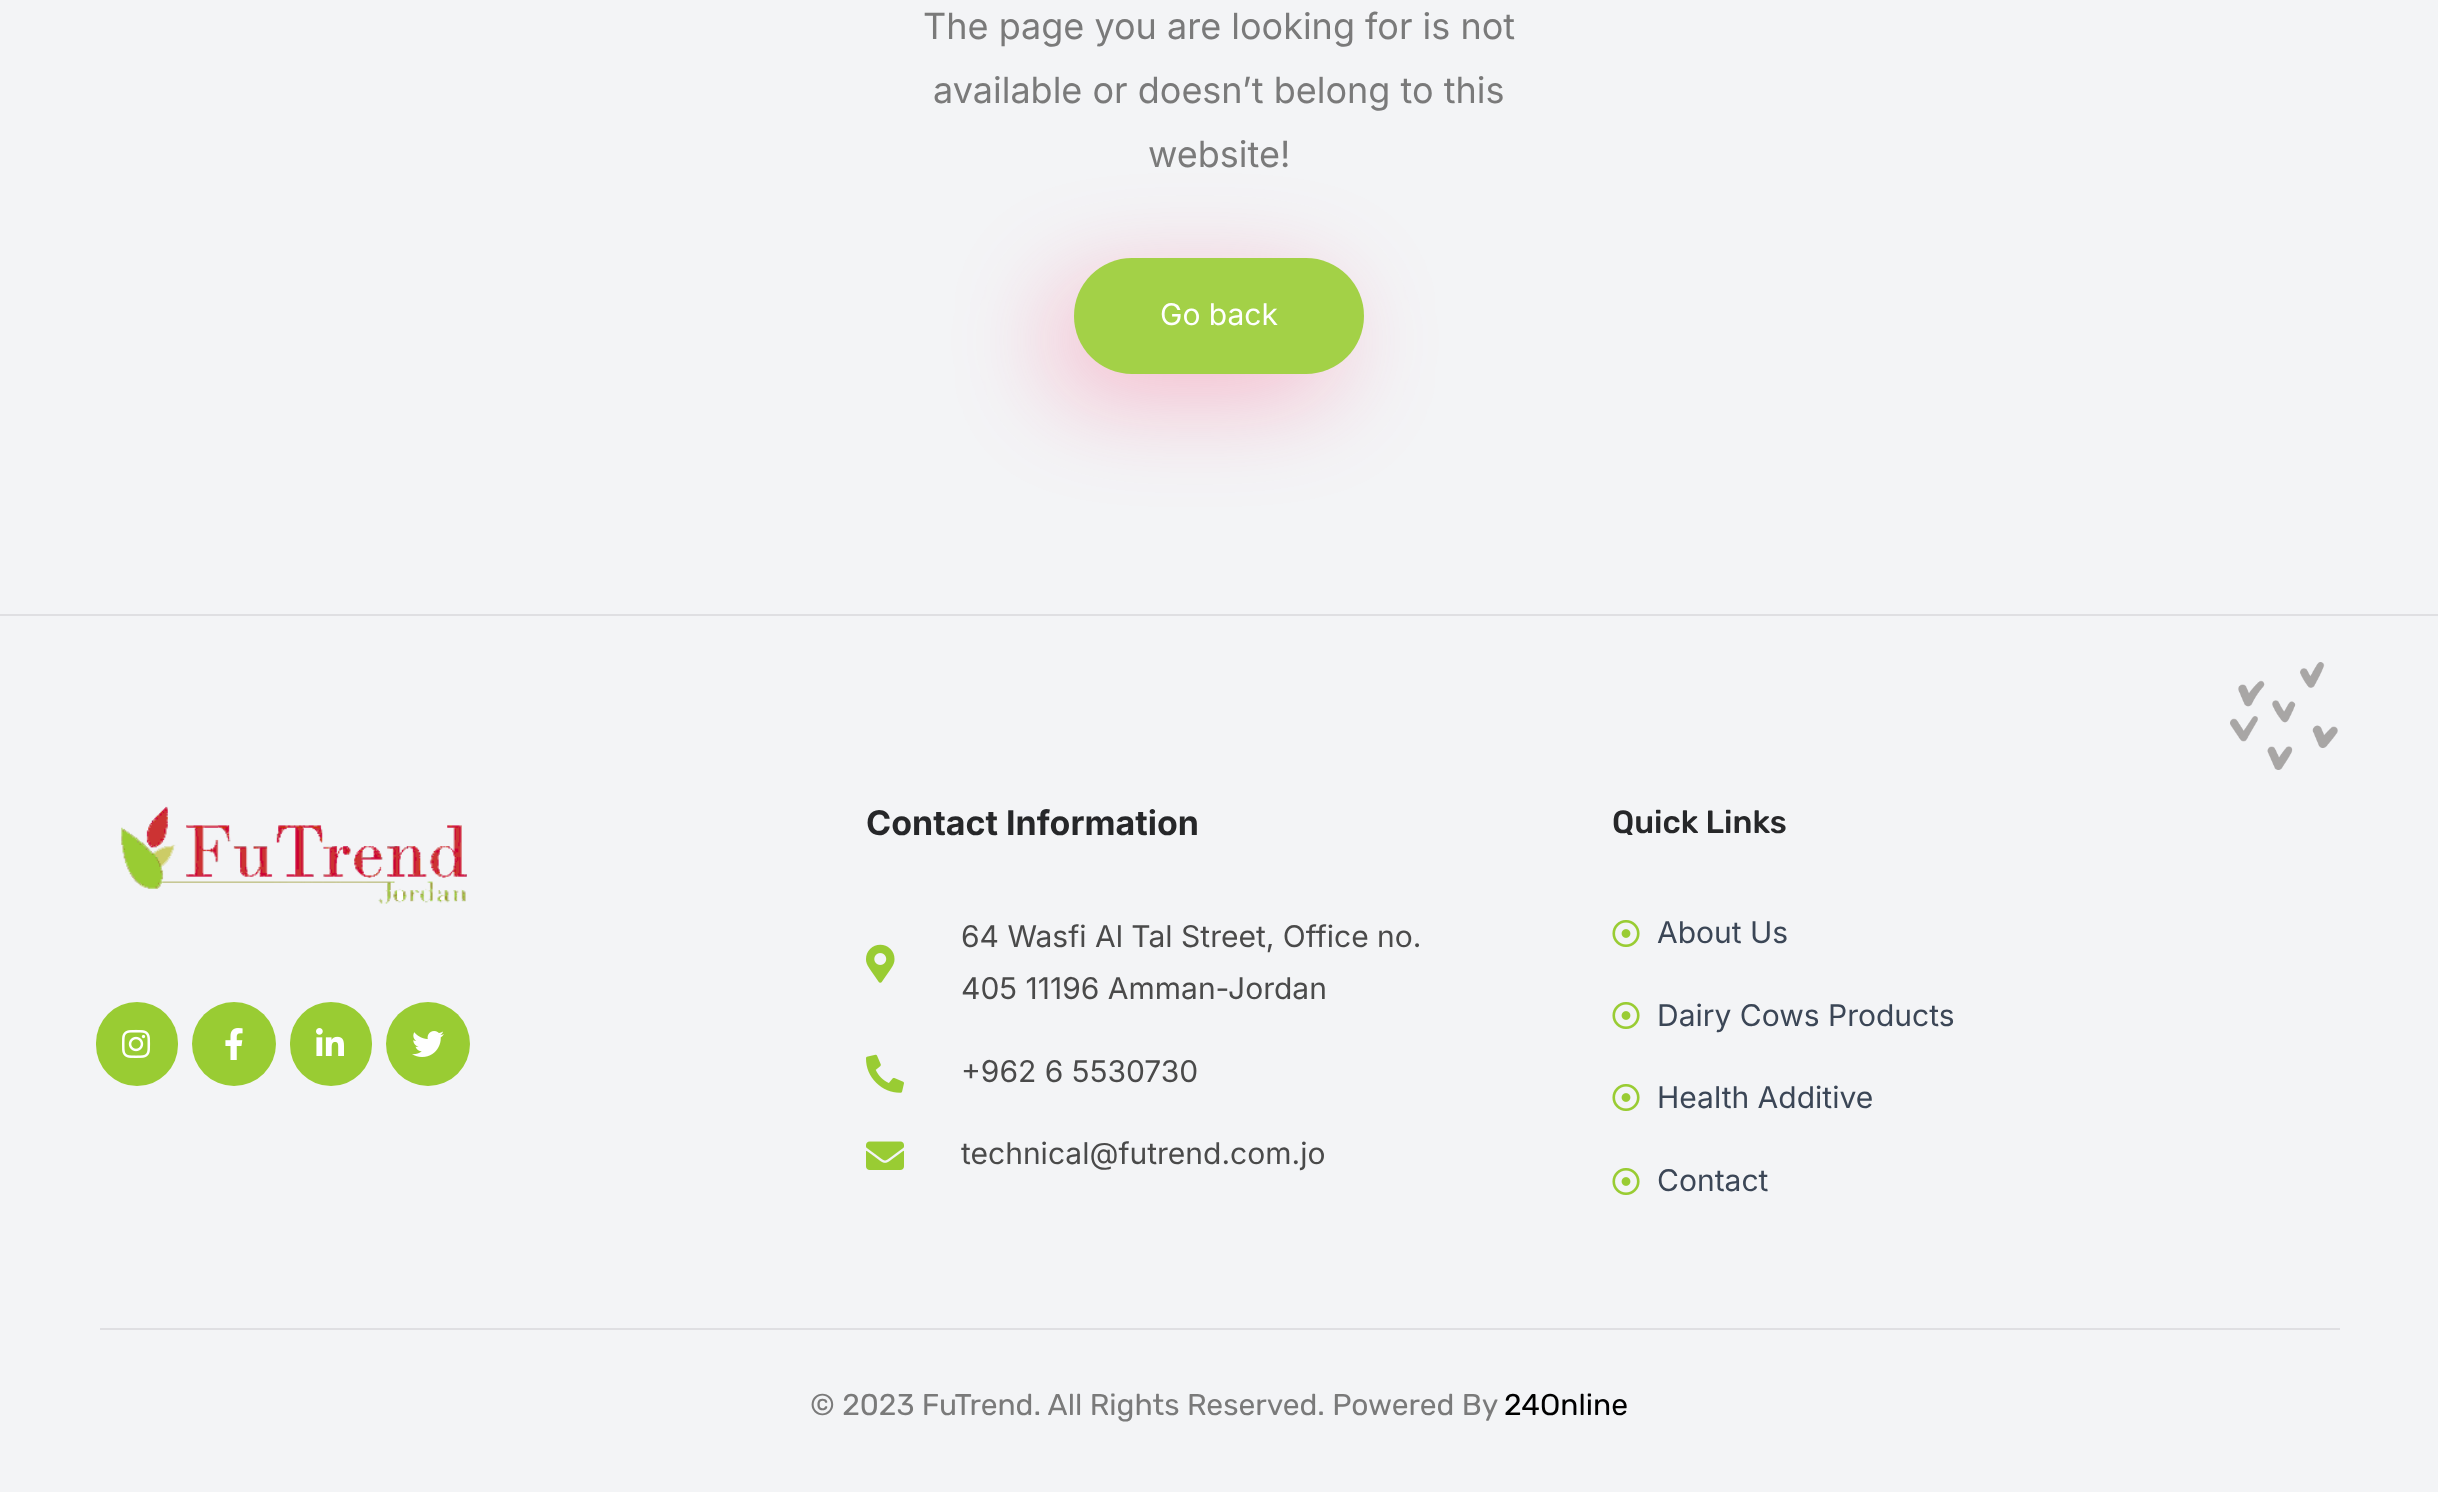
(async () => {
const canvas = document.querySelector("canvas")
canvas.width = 2438
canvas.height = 1492
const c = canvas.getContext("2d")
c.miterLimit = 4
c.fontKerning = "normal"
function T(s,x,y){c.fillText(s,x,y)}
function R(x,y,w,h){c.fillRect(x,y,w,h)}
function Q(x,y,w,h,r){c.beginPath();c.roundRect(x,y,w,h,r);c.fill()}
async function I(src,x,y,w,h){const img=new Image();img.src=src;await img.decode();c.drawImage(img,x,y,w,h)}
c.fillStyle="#f3f4f6"
R(0,0,2438,1492)
c.fillStyle="#dfdfe2"
R(0,614,2438,2)
c.font="36px Inter"
c.fillStyle="#7a7a7a"
T("The page you are looking for is not",923,39)
T("available or doesn’t belong to this",933,103)
T("website!",1148,167)
c.fillStyle="#fd346e4d"
c.filter="blur(50px)"
c.beginPath()
c.roundRect(1050,282,290,116,58)
c.fill()
c.filter="none"
c.fillStyle="#a3d147"
Q(1074,258,290,116,58)
c.font="30px Inter"
c.fillStyle="#fff"
T("Go back",1160,325)
await I("1.png",121,806,346,98)
c.fillStyle="#9c3"
Q(96,1002,82,84,41)
await I("2.png",122,1029,29,29)
c.beginPath()
c.arc(234,1044,42,0,7)
c.fill()
await I("3.png",225,1028,18,32)
Q(290,1002,82,84,41)
await I("4.png",316,1028,28,28)
c.beginPath()
c.arc(428,1044,42,0,7)
c.fill()
await I("5.png",412,1031,32,26)
c.font="bold 34px Inter"
c.fillStyle="#262729"
T("Contact Information",866,835)
await I("6.png",866,944,29,39)
c.font="30px Inter"
c.fillStyle="#4a4a4a"
T("64 Wasfi Al Tal Street, Office no.",961,947)
T("405 11196 Amman-Jordan",961,999)
await I("7.png",866,1054,38,39)
T("+962 6 5530730",961,1082)
await I("8.png",866,1141,38,29)
T("technical@futrend.com.jo",961,1164)
await I("9.png",2230,662,108,108)
c.font="500 32px Rubik"
c.fillStyle="#262729"
T("Quick Links",1612,833)
await I("10.png",1612,920,28,27)
c.font="30px Inter"
c.fillStyle="#3b4656"
T("About Us",1657,943)
await I("10.png",1612,1002,28,27)
T("Dairy Cows Products",1657,1026)
await I("10.png",1612,1084,28,27)
T("Health Additive",1657,1108)
await I("10.png",1612,1168,28,27)
T("Contact",1657,1191)
c.fillStyle="#dfdfe2"
R(100,1328,2240,2)
c.font="30px Rubik"
c.fillStyle="#7a7a7a"
T("© 2023 FuTrend. All Rights Reserved. Powered By",810,1415)
c.fillStyle="#000"
T("24Online",1504,1415)
})()
